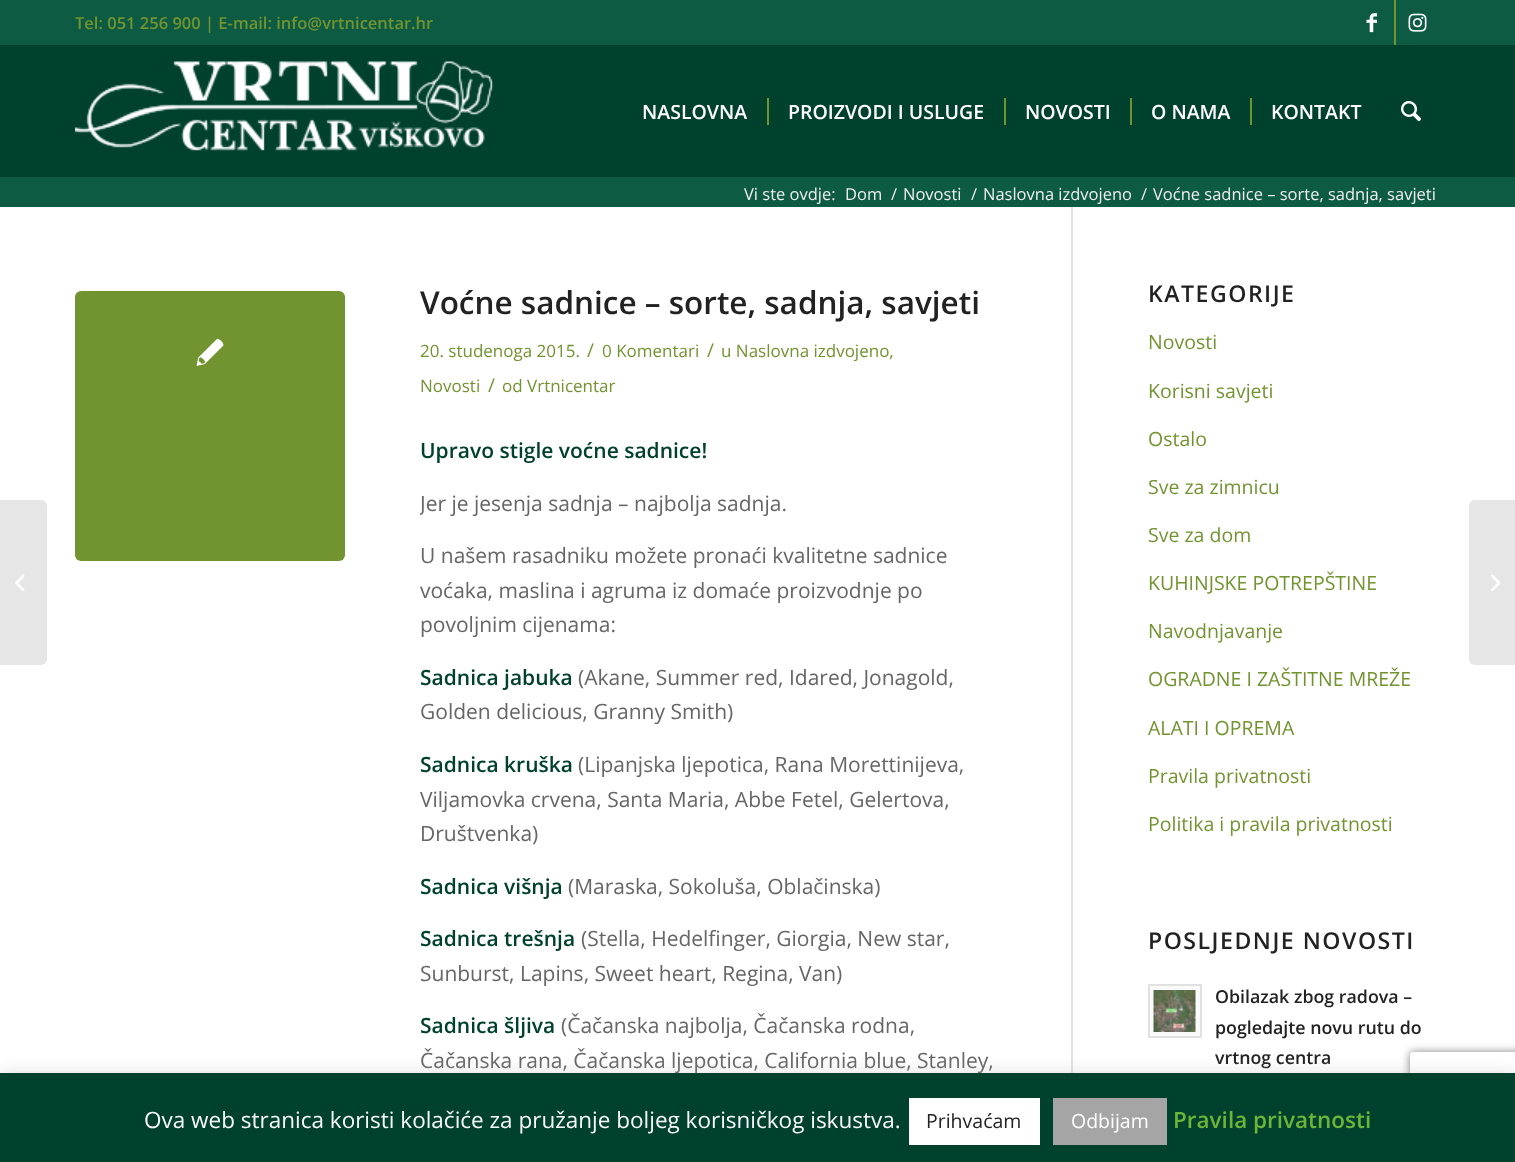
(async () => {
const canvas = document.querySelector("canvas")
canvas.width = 1515
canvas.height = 1162
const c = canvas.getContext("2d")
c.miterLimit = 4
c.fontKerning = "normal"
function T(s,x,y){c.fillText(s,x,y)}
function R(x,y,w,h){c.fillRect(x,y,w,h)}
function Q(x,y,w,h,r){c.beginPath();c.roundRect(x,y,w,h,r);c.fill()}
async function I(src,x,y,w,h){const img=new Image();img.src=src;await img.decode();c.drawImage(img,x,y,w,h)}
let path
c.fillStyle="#0e5b44"
R(0,0,1515,1162)
c.font="600 16.5px Open Sans"
c.fillStyle="#719430"
T("Tel: 051 256 900 | E-mail: info@vrtnicentar.hr",75,29)
R(1394,0,2,45)
await I("1.png",1366,13,11,20)
await I("2.png",1408,13,19,19)
c.fillStyle="#00412e"
R(0,45,1515,132)
await I("3.png",75,61,418,90)
c.font="600 19.5px Open Sans"
c.fillStyle="#fff"
T("NASLOVNA",642,119)
T("PROIZVODI I USLUGE",788,119)
c.fillStyle="#719430"
R(767,98,2,27)
c.fillStyle="#fff"
T("NOVOSTI",1025,119)
c.fillStyle="#719430"
R(1004,98,2,27)
c.fillStyle="#fff"
T("O NAMA",1151,119)
c.fillStyle="#719430"
R(1130,98,2,27)
c.fillStyle="#fff"
T("KONTAKT",1271,119)
c.fillStyle="#719430"
R(1250,98,2,27)
await I("4.png",1401,101,21,21)
c.fillStyle="#fff"
R(0,207,1515,866)
c.fillStyle="#e6e6e6"
c.beginPath()
c.roundRect(0,500,47,165,[0,6,6,0])
c.fill()
await I("5.png",15,574,10,17)
c.font="16.5px Open Sans"
c.fillStyle="#efefef"
T("Vi ste ovdje:",744,200)
T("Dom",845,200)
T("/",891,200)
T("Novosti",903,200)
T("/",971,200)
T("Naslovna izdvojeno",983,200)
T("/",1141,200)
T("Voćne sadnice – sorte, sadnja, savjeti",1153,200)
c.fillStyle="#e1e1e1"
R(1071,207,2,866)
c.fillStyle="#719430"
Q(75,291,270,270,6)
await I("6.png",196,338,28,28)
c.font="600 31.5px Open Sans"
c.fillStyle="#222"
T("Voćne sadnice – sorte, sadnja, savjeti",420,314)
c.font="17px Open Sans"
c.fillStyle="#719430"
T("20. studenoga 2015.",420,357)
c.font="19px Open Sans"
T("/",587,357)
c.font="17px Open Sans"
T("0 Komentari",602,357)
c.font="19px Open Sans"
T("/",707,357)
c.font="17px Open Sans"
T("u Naslovna izdvojeno,",721,357)
T("Novosti",420,392)
c.font="19px Open Sans"
T("/",488,392)
c.font="17px Open Sans"
T("od Vrtnicentar",502,392)
c.font="600 21px Open Sans"
c.fillStyle="#00412e"
T("Upravo stigle voćne sadnice!",420,458)
c.save()
c.beginPath()
c.rect(420,282,651,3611)
c.clip()
c.font="21px Open Sans"
c.fillStyle="#666"
T("Jer je jesenja sadnja – najbolja sadnja.",420,511)
c.restore()
c.font="21px Open Sans"
c.fillStyle="#666"
T("U našem rasadniku možete pronaći kvalitetne sadnice",420,563)
T("voćaka, maslina i agruma iz domaće proizvodnje po",420,598)
T("povoljnim cijenama:",420,632)
c.font="600 21px Open Sans"
c.fillStyle="#00412e"
T("Sadnica jabuka",420,685)
c.font="21px Open Sans"
c.fillStyle="#666"
T("(Akane, Summer red, Idared, Jonagold,",578,685)
T("Golden delicious, Granny Smith)",420,719)
c.font="600 21px Open Sans"
c.fillStyle="#00412e"
T("Sadnica kruška",420,772)
c.font="21px Open Sans"
c.fillStyle="#666"
T("(Lipanjska ljepotica, Rana Morettinijeva,",578,772)
T("Viljamovka crvena, Santa Maria, Abbe Fetel, Gelertova,",420,807)
T("Društvenka)",420,841)
c.font="600 21px Open Sans"
c.fillStyle="#00412e"
T("Sadnica višnja",420,894)
c.font="21px Open Sans"
c.fillStyle="#666"
T("(Maraska, Sokoluša, Oblačinska)",568,894)
c.font="600 21px Open Sans"
c.fillStyle="#00412e"
T("Sadnica trešnja",420,946)
c.font="21px Open Sans"
c.fillStyle="#666"
T("(Stella, Hedelfinger, Giorgia, New star,",581,946)
T("Sunburst, Lapins, Sweet heart, Regina, Van)",420,981)
c.font="600 21px Open Sans"
c.fillStyle="#00412e"
T("Sadnica šljiva",420,1033)
c.font="21px Open Sans"
c.fillStyle="#666"
T("(Čačanska najbolja, Čačanska rodna,",561,1033)
T("Čačanska rana, Čačanska ljepotica, California blue, Stanley,",420,1068)
c.letterSpacing="1.5px"
c.font="600 23.1px Open Sans"
c.fillStyle="#222"
T("KATEGORIJE",1148,302)
c.letterSpacing="0px"
c.font="19.5px Open Sans"
c.fillStyle="#719430"
T("Novosti",1148,349)
T("Korisni savjeti",1148,398)
T("Ostalo",1148,446)
T("Sve za zimnicu",1148,494)
T("Sve za dom",1148,542)
T("KUHINJSKE POTREPŠTINE",1148,590)
T("Navodnjavanje",1148,638)
T("OGRADNE I ZAŠTITNE MREŽE",1148,686)
T("ALATI I OPREMA",1148,735)
T("Pravila privatnosti",1148,783)
T("Politika i pravila privatnosti",1148,831)
c.letterSpacing="1.5px"
c.font="600 23.1px Open Sans"
c.fillStyle="#222"
T("POSLJEDNJE NOVOSTI",1148,949)
c.fillStyle="#fafafa"
c.beginPath()
c.rect(1149,985,52,52)
c.fill()
c.strokeStyle="#e1e1e1"
c.lineWidth=2
c.stroke()
await I("7.png",1153,990,43,42)
c.letterSpacing="0px"
c.font="600 17.8px Open Sans"
c.fillStyle="#222"
T("Obilazak zbog radova –",1215,1003)
T("pogledajte novu rutu do",1215,1034)
T("vrtnog centra",1215,1064)
c.fillStyle="#e6e6e6"
c.beginPath()
c.roundRect(1469,500,46,165,[6,0,0,6])
c.fill()
await I("8.png",1491,574,10,17)
c.fillStyle="#acabab4d"
c.filter="blur(7.5px)"
c.beginPath()
c.rect(0,1071,1515,90)
c.fill()
c.filter="none"
c.save()
path = new Path2D("M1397 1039h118v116h-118zm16 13h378c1.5 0 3 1.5 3 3v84c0 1.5-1.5 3-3 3h-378c-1.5 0-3-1.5-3-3v-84c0-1.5 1.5-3 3-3z")
c.clip(path,"evenodd")
c.fillStyle="#808080"
c.filter="blur(4px)"
c.beginPath()
c.roundRect(1410,1052,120,90,3)
c.fill()
c.filter="none"
c.restore()
c.fillStyle="#00412e"
R(0,1073,1515,89)
c.font="22.5px Open Sans"
c.fillStyle="#f8f8f8"
T("Ova web stranica koristi kolačiće za pružanje boljeg korisničkog iskustva.",144,1128)
c.fillStyle="#fff"
R(909,1098,131,47)
c.font="19.5px Open Sans"
c.fillStyle="#222"
T("Prihvaćam",926,1128)
c.fillStyle="#a5a5a5"
R(1053,1098,114,47)
c.fillStyle="#fff"
T("Odbijam",1071,1128)
c.font="600 22.5px Open Sans"
c.fillStyle="#6cb538"
T("Pravila privatnosti",1173,1128)
})()
